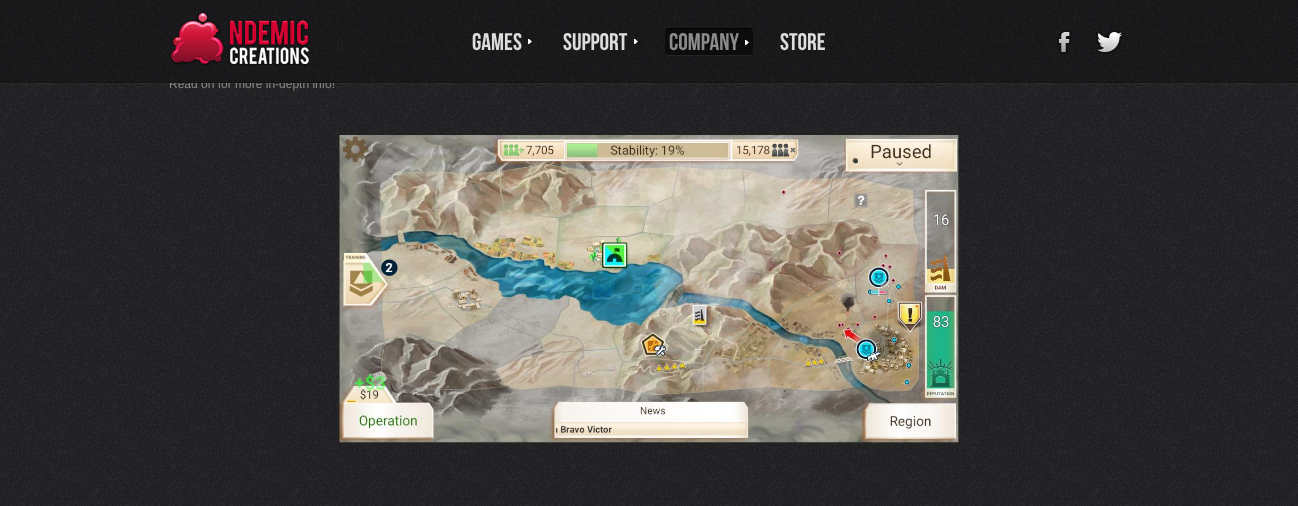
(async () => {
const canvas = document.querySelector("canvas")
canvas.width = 1298
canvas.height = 506
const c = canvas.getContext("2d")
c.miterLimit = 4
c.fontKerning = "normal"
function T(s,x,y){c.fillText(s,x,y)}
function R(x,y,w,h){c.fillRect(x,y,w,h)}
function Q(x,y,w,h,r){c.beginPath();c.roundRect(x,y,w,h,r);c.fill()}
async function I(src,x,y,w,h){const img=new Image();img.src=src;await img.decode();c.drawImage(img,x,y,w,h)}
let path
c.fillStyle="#fff"
R(0,0,1298,506)
await I("1.png",0,83,1298,423)
c.fillStyle="#ffffff0a"
R(0,83,1298,1)
c.font="12px Liberation Sans"
c.fillStyle="#8c8c8c"
T("Read on for more in-depth info!",169,88)
await I("2.png",0,0,1298,83)
c.fillStyle="#00000042"
R(0,82,1298,1)
await I("3.png",170,12,169,54)
await I("4.png",528,39,4,5)
c.font="24px Bebas Neue"
c.fillStyle="#ddd"
T("Games",472,50)
await I("5.png",634,39,4,5)
T("Support",563,50)
c.fillStyle="#00000080"
Q(665,28,88,28,4)
await I("6.png",745,40,4,5)
c.fillStyle="#000"
path = new Path2D("M669 28c-2 0-4 2-4 4c0-2 2-3 4-3h80c2 0 4 1 4 3c0-2-2-4-4-4z")
c.fill(path)
c.fillStyle="#ffffff1a"
path = new Path2D("M749 56c2 0 4-2 4-4c0 2-2 3-4 3h-80c-2 0-4-1-4-3c0 2 2 4 4 4z")
c.fill(path)
c.fillStyle="#8c8c8c"
T("Company",669,50)
c.fillStyle="#ddd"
T("Store",780,50)
await I("7.png",1057,30,15,24)
await I("8.png",1096,30,28,24)
await I("9.png",339,135,620,308)
})()
